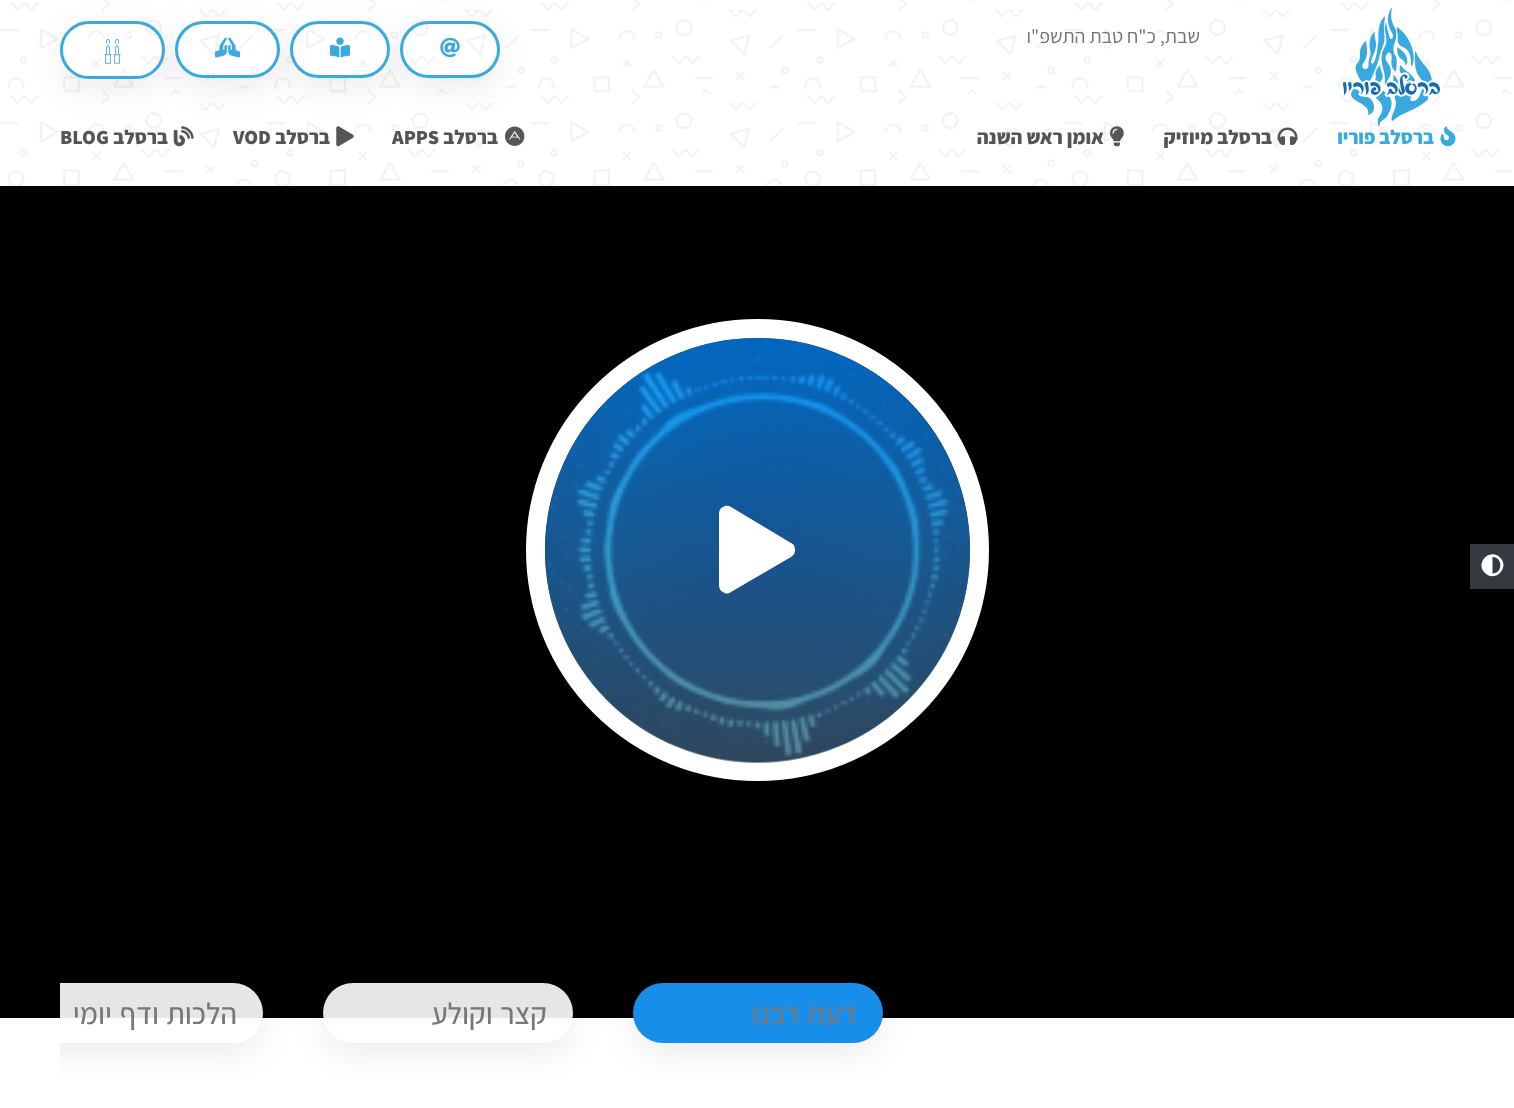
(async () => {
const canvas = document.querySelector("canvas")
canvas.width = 1514
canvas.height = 1108
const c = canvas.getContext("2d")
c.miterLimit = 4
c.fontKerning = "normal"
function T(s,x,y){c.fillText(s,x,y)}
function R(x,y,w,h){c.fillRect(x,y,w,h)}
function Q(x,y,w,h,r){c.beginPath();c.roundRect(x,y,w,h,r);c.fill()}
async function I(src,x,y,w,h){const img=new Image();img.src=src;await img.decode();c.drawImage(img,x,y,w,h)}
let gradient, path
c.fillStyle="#fff"
R(0,0,1514,1108)
await I("1.png",0,0,1513,89)
await I("7.png",0,89,1513,97)
await I("2.png",1343,8,97,118)
c.direction="rtl"
c.font="20px Assistant"
c.fillStyle="#6c757d"
T("שבת, כ\"ח טבת התשפ\"ו",1200,43)
c.save()
path = new Path2D("M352 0h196v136h-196zm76.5 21h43c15.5 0 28.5 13 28.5 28.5c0 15.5-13 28.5-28.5 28.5h-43c-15.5 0-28.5-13-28.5-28.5c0-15.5 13-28.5 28.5-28.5z")
c.clip(path,"evenodd")
c.fillStyle="#48455a1a"
c.filter="blur(15.5px)"
c.beginPath()
c.roundRect(400,31,100,57,28.5)
c.fill()
c.filter="none"
c.restore()
c.beginPath()
c.roundRect(401.5,22.5,97,54,27)
c.strokeStyle="#39aae1"
c.lineWidth=3
c.stroke()
await I("3.png",440,37,20,21)
c.save()
path = new Path2D("M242 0h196v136h-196zm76.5 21h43c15.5 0 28.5 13 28.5 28.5c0 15.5-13 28.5-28.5 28.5h-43c-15.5 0-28.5-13-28.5-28.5c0-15.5 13-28.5 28.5-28.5z")
c.clip(path,"evenodd")
c.fillStyle="#48455a1a"
c.filter="blur(15.5px)"
c.beginPath()
c.roundRect(290,31,100,57,28.5)
c.fill()
c.filter="none"
c.restore()
c.beginPath()
c.roundRect(291.5,22.5,97,54,27)
c.stroke()
await I("4.png",330,37,20,21)
c.save()
path = new Path2D("M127 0h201v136h-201zm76.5 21h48c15.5 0 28.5 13 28.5 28.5c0 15.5-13 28.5-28.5 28.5h-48c-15.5 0-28.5-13-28.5-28.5c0-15.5 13-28.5 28.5-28.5z")
c.clip(path,"evenodd")
c.fillStyle="#48455a1a"
c.filter="blur(15.5px)"
c.beginPath()
c.roundRect(175,31,105,57,28.5)
c.fill()
c.filter="none"
c.restore()
c.beginPath()
c.roundRect(176.5,22.5,102,54,27)
c.stroke()
await I("5.png",215,37,26,21)
c.save()
path = new Path2D("M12 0h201v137h-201zm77 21h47c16 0 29 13 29 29c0 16-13 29-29 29h-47c-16 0-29-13-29-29c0-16 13-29 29-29z")
c.clip(path,"evenodd")
c.fillStyle="#48455a1a"
c.filter="blur(15.5px)"
c.beginPath()
c.roundRect(60,31,105,58,29)
c.fill()
c.filter="none"
c.restore()
c.beginPath()
c.roundRect(61.5,22.5,102,55,27.5)
c.stroke()
await I("6.png",104,39,17,25)
await I("8.png",1440,126,16,21)
c.font="800 20px Assistant"
c.fillStyle="#39aae1"
T("ברסלב פוריו",1434,144)
await I("9.png",1277,127,21,18)
c.fillStyle="#555"
T("ברסלב מיוזיק",1272,144)
await I("10.png",1110,126,14,21)
T("אומן ראש השנה",1104,144)
await I("11.png",505,126,20,20)
T("ברסלב",498,144)
c.direction="ltr"
T("APPS",392,144)
await I("12.png",336,126,18,21)
c.direction="rtl"
T("ברסלב",330,144)
c.direction="ltr"
T("VOD",233,144)
await I("13.png",173,126,21,21)
c.direction="rtl"
T("ברסלב",168,144)
c.direction="ltr"
T("BLOG",60,144)
c.fillStyle="#000"
R(0,186,1514,832)
await I("14.png",526,337,463,426)
c.beginPath()
c.roundRect(535.5,328.5,444,443,221.5)
c.strokeStyle="#fff"
c.lineWidth=19
c.stroke()
gradient = c.createLinearGradient(758,338,758,763)
gradient.addColorStop(0,"#0089ffb3")
gradient.addColorStop(1,"#3e5970b3")
c.fillStyle = gradient
c.beginPath()
c.arc(757.5,550.5,212.5,0,7)
c.fill()
c.fillStyle="#fff"
path = new Path2D("M791 543c3 1 4 4 4 7c0 3-1 5-4 7l-60 35c-3 2-5 2-8 0c-3-1-4-4-4-7v-71c0-3 1-6 4-7c3-2 6-1 8 0z")
c.fill(path)
c.fillStyle="#343a40"
R(1470,544,44,45)
c.fillStyle="#fff"
path = new Path2D("M1485 573c-10.5-10 5-25.5 15-15.5c10.5 10-5 25.5-15 15.5zm7.5 .5c10.5 0 10.5-16.5 0-16.5z")
c.fill(path)
c.fillStyle="#48455a1a"
c.filter="blur(15.5px)"
c.beginPath()
c.roundRect(633,993,250,60,30)
c.fill()
c.filter="none"
c.fillStyle="#168eea"
Q(633,983,250,60,30)
c.direction="rtl"
c.font="500 30px Assistant"
c.fillStyle="#777"
T("דעת רבנו",857,1024)
c.save()
path = new Path2D("M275 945h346v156h-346zm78 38h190c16.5 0 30 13.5 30 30c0 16.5-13.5 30-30 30h-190c-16.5 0-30-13.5-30-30c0-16.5 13.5-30 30-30z")
c.clip(path,"evenodd")
c.fillStyle="#48455a1a"
c.filter="blur(15.5px)"
c.beginPath()
c.roundRect(323,993,250,60,30)
c.fill()
c.filter="none"
c.restore()
c.fillStyle="#ffffffe6"
Q(323,983,250,60,30)
c.fillStyle="#777"
T("קצר וקולע",547,1024)
c.save()
c.beginPath()
c.rect(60,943,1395,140)
c.clip()
path = new Path2D("M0 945h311v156h-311zm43 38h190c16.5 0 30 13.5 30 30c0 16.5-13.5 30-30 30h-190c-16.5 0-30-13.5-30-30c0-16.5 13.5-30 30-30z")
c.clip(path,"evenodd")
c.fillStyle="#48455a1a"
c.filter="blur(15.5px)"
c.beginPath()
c.roundRect(13,993,250,60,30)
c.fill()
c.filter="none"
c.restore()
c.fillStyle="#ffffffe6"
c.beginPath()
c.roundRect(60,983,203,60,[0,30,30,0])
c.fill()
c.fillStyle="#777"
T("הלכות ודף יומי",237,1024)
})()
